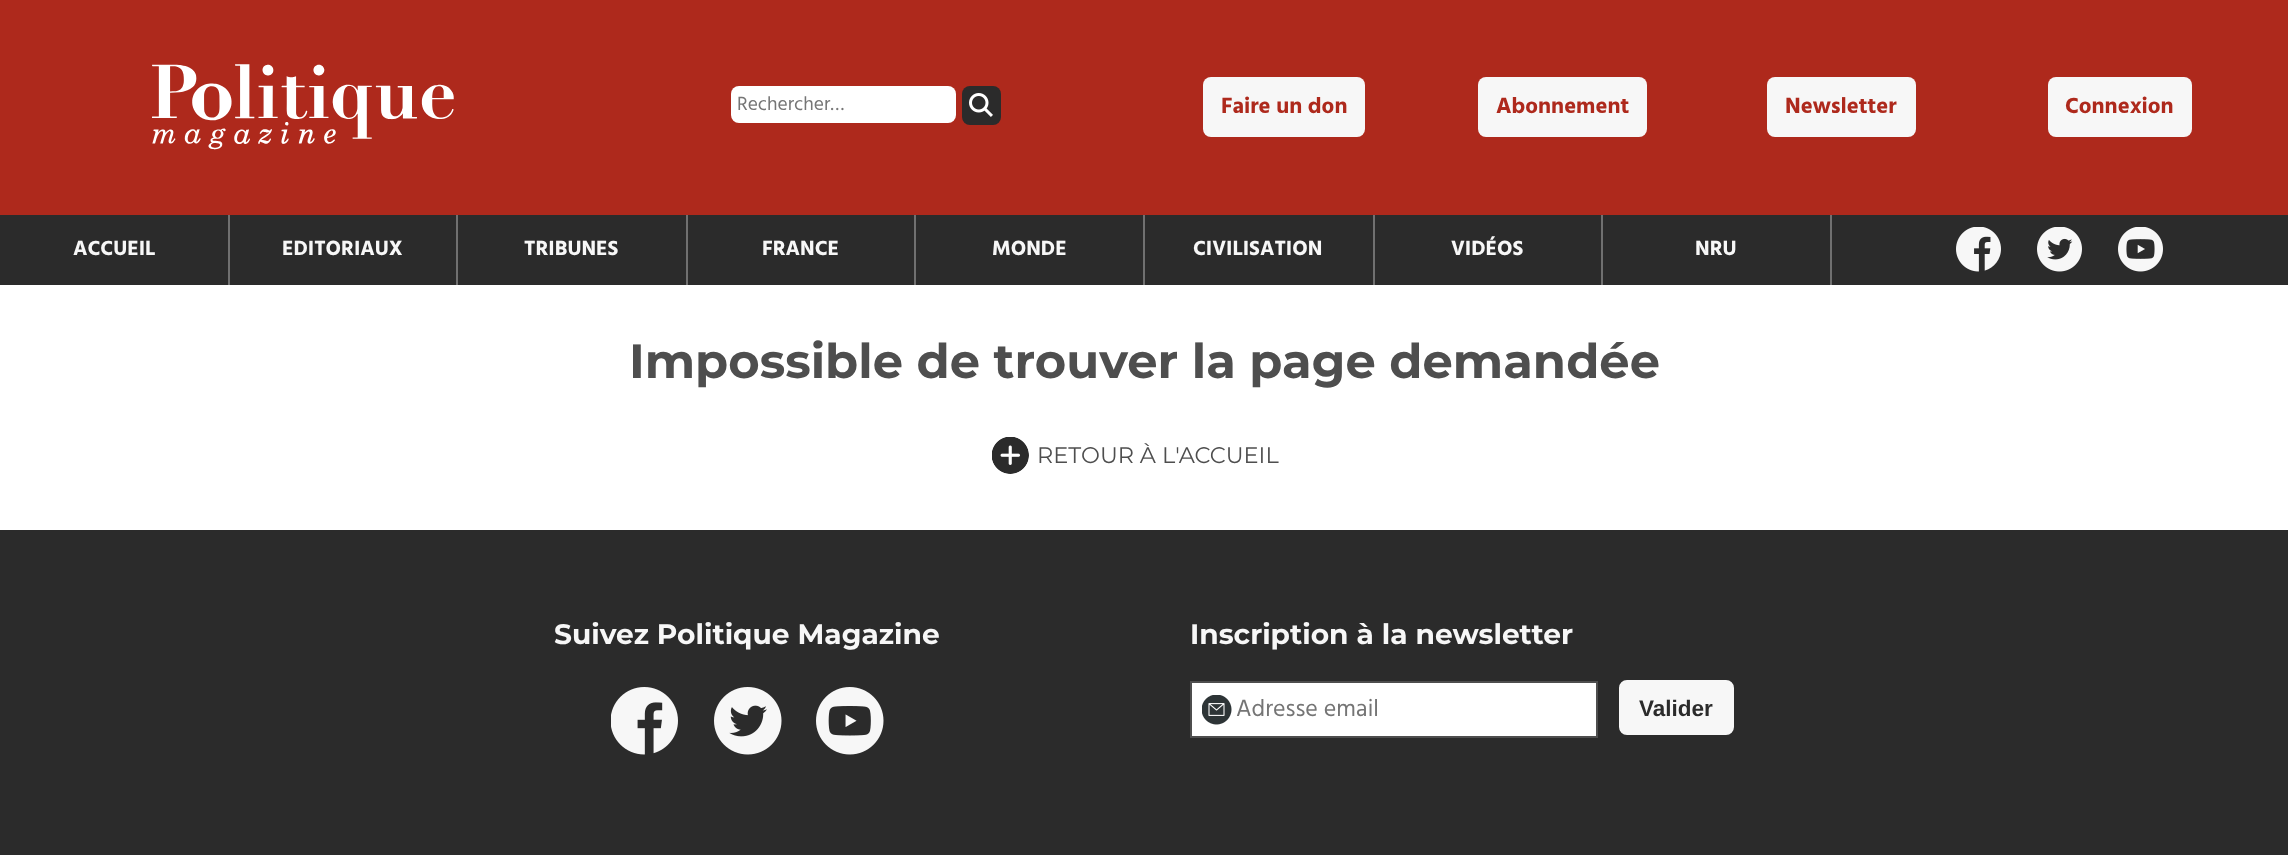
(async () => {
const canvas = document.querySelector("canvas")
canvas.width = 2288
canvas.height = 855
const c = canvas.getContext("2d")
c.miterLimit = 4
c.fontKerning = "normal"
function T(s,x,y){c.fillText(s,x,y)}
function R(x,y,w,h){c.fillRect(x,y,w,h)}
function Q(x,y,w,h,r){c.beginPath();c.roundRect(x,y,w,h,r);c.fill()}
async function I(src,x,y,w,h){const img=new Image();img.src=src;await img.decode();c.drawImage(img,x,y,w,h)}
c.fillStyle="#fff"
R(0,0,2288,855)
c.fillStyle="#ae291c"
R(0,0,2288,215)
await I("1.png",152,64,302,86)
c.fillStyle="#fff"
Q(731,86,225,37,8)
c.font="19.5px Hind"
c.fillStyle="#757575"
T("Rechercher…",737,110)
c.fillStyle="#2b2b2b"
Q(962,86,39,39,8)
await I("2.png",969,93,24,24)
c.fillStyle="#f7f7f7"
Q(1203,77,162,60,8)
c.font="bold 22.5px Hind"
c.fillStyle="#ae291c"
T("Faire un don",1221,113)
c.fillStyle="#f7f7f7"
Q(1478,77,169,60,8)
c.fillStyle="#ae291c"
T("Abonnement",1496,113)
c.fillStyle="#f7f7f7"
Q(1767,77,149,60,8)
c.fillStyle="#ae291c"
T("Newsletter",1785,113)
c.fillStyle="#f7f7f7"
Q(2048,77,144,60,8)
c.fillStyle="#ae291c"
T("Connexion",2065,113)
c.fillStyle="#2b2b2b"
R(0,215,2288,70)
c.fillStyle="#707070"
R(228,215,2,70)
c.font="bold 21px Hind"
c.fillStyle="#f7f7f7"
T("ACCUEIL",73,255)
c.fillStyle="#707070"
R(456,215,2,70)
c.fillStyle="#f7f7f7"
T("EDITORIAUX",282,255)
c.fillStyle="#707070"
R(686,215,2,70)
c.fillStyle="#f7f7f7"
T("TRIBUNES",524,255)
c.fillStyle="#707070"
R(914,215,2,70)
c.fillStyle="#f7f7f7"
T("FRANCE",762,255)
c.fillStyle="#707070"
R(1143,215,2,70)
c.fillStyle="#f7f7f7"
T("MONDE",992,255)
c.fillStyle="#707070"
R(1373,215,2,70)
c.fillStyle="#f7f7f7"
T("CIVILISATION",1193,255)
c.fillStyle="#707070"
R(1601,215,2,70)
c.fillStyle="#f7f7f7"
T("VIDÉOS",1451,255)
c.fillStyle="#707070"
R(1830,215,2,70)
c.fillStyle="#f7f7f7"
T("NRU",1695,255)
await I("3.png",1956,227,45,45)
await I("4.png",2037,227,45,45)
await I("5.png",2118,227,45,45)
c.font="bold 48px Montserrat"
c.fillStyle="#4e4e4e"
T("Impossible de trouver la page demandée",629,378)
await I("6.png",992,437,37,37)
c.font="22.5px Montserrat"
T("RETOUR À L'ACCUEIL",1037,463)
c.fillStyle="#2b2b2b"
R(0,530,2288,325)
c.font="bold 28.1px Montserrat"
c.fillStyle="#f7f7f7"
T("Suivez Politique Magazine",554,644)
await I("7.png",611,687,67,68)
await I("8.png",714,687,68,68)
await I("9.png",816,687,68,68)
T("Inscription à la newsletter",1190,644)
c.fillStyle="#fff"
R(1192,683,404,53)
await I("10.png",1202,695,30,30)
c.strokeStyle="#4e4e4e"
c.lineWidth=2
c.strokeRect(1191,682,406,55)
c.font="24px Hind"
c.fillStyle="#757575"
T("Adresse email",1236,716)
c.fillStyle="#f7f7f7"
c.beginPath()
c.roundRect(1620.5,681.5,112,52,6.5)
c.fill()
c.strokeStyle="#f7f7f7"
c.lineWidth=3
c.stroke()
c.font="bold 22.5px Liberation Sans"
c.fillStyle="#2b2b2b"
T("Valider",1639,716)
})()
